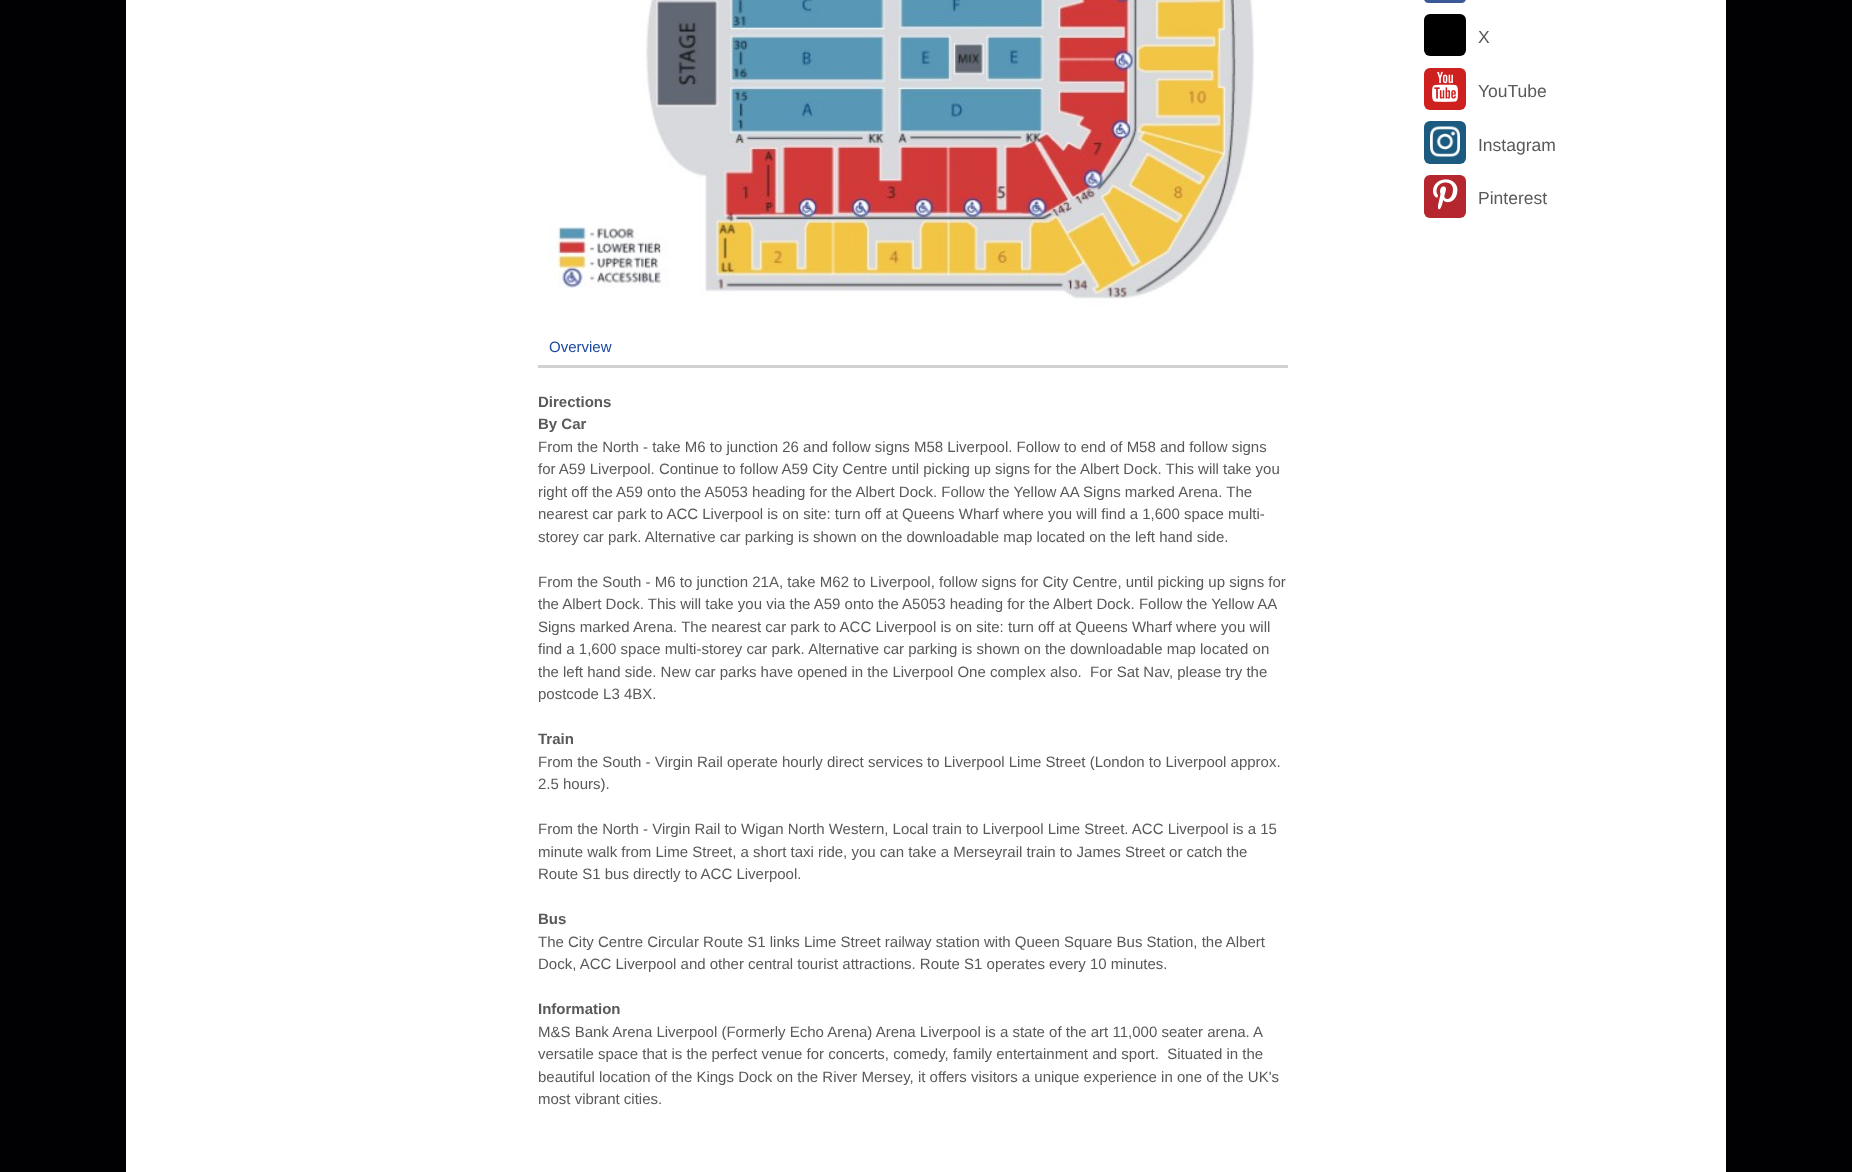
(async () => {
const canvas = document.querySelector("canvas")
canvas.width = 1852
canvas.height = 1172
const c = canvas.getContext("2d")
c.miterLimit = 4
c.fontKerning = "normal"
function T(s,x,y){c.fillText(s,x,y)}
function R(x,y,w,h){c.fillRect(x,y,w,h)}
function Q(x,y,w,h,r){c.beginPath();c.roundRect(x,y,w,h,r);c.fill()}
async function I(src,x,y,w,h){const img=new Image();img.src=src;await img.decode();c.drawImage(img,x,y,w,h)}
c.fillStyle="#010103"
R(0,0,1852,1172)
c.fillStyle="#fff"
R(126,0,1600,1172)
c.fillStyle="#3b5998"
Q(1424,-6,42,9,6)
c.fillStyle="#000"
Q(1424,14,42,42,6)
c.font="17.5px Liberation Sans"
c.fillStyle="#595958"
T("X",1478,43)
c.fillStyle="#cd201f"
Q(1424,68,42,42,6)
await I("1.png",1432,71,26,31)
c.fillStyle="#595958"
T("YouTube",1478,97)
c.fillStyle="#1c5a7f"
Q(1424,121,42,43,6)
await I("2.png",1430,126,30,31)
c.fillStyle="#595958"
T("Instagram",1478,151)
c.fillStyle="#b6262f"
Q(1424,175,42,43,6)
await I("3.png",1433,179,25,31)
c.fillStyle="#595958"
T("Pinterest",1478,204)
await I("4.png",549,0,705,307)
c.fillStyle="#d1d1d1"
R(538,365,750,3)
c.font="15px Liberation Sans"
c.fillStyle="#18479f"
T("Overview",549,352)
c.font="bold 15px Liberation Sans"
c.fillStyle="#595958"
T("Directions",538,407)
T("By Car",538,429)
c.font="15px Liberation Sans"
T("From the North - take M6 to junction 26 and follow signs M58 Liverpool. Follow to end of M58 and follow signs",538,452)
T("for A59 Liverpool. Continue to follow A59 City Centre until picking up signs for the Albert Dock. This will take you",538,474)
T("right off the A59 onto the A5053 heading for the Albert Dock. Follow the Yellow AA Signs marked Arena. The",538,497)
T("nearest car park to ACC Liverpool is on site: turn off at Queens Wharf where you will find a 1,600 space multi-",538,519)
T("storey car park. Alternative car parking is shown on the downloadable map located on the left hand side.",538,542)
T("From the South - M6 to junction 21A, take M62 to Liverpool, follow signs for City Centre, until picking up signs for",538,587)
T("the Albert Dock. This will take you via the A59 onto the A5053 heading for the Albert Dock. Follow the Yellow AA",538,609)
T("Signs marked Arena. The nearest car park to ACC Liverpool is on site: turn off at Queens Wharf where you will",538,632)
T("find a 1,600 space multi-storey car park. Alternative car parking is shown on the downloadable map located on",538,654)
T("the left hand side. New car parks have opened in the Liverpool One complex also.  For Sat Nav, please try the",538,677)
T("postcode L3 4BX.",538,699)
c.font="bold 15px Liberation Sans"
T("Train",538,744)
c.font="15px Liberation Sans"
T("From the South - Virgin Rail operate hourly direct services to Liverpool Lime Street (London to Liverpool approx.",538,767)
T("2.5 hours).",538,789)
T("From the North - Virgin Rail to Wigan North Western, Local train to Liverpool Lime Street. ACC Liverpool is a 15",538,834)
T("minute walk from Lime Street, a short taxi ride, you can take a Merseyrail train to James Street or catch the",538,857)
T("Route S1 bus directly to ACC Liverpool.",538,879)
c.font="bold 15px Liberation Sans"
T("Bus",538,924)
c.font="15px Liberation Sans"
T("The City Centre Circular Route S1 links Lime Street railway station with Queen Square Bus Station, the Albert",538,947)
T("Dock, ACC Liverpool and other central tourist attractions. Route S1 operates every 10 minutes.",538,969)
c.font="bold 15px Liberation Sans"
T("Information",538,1014)
c.font="15px Liberation Sans"
T("M&S Bank Arena Liverpool (Formerly Echo Arena) Arena Liverpool is a state of the art 11,000 seater arena. A",538,1037)
T("versatile space that is the perfect venue for concerts, comedy, family entertainment and sport.  Situated in the",538,1059)
T("beautiful location of the Kings Dock on the River Mersey, it offers visitors a unique experience in one of the UK's",538,1082)
T("most vibrant cities.",538,1104)
})()
